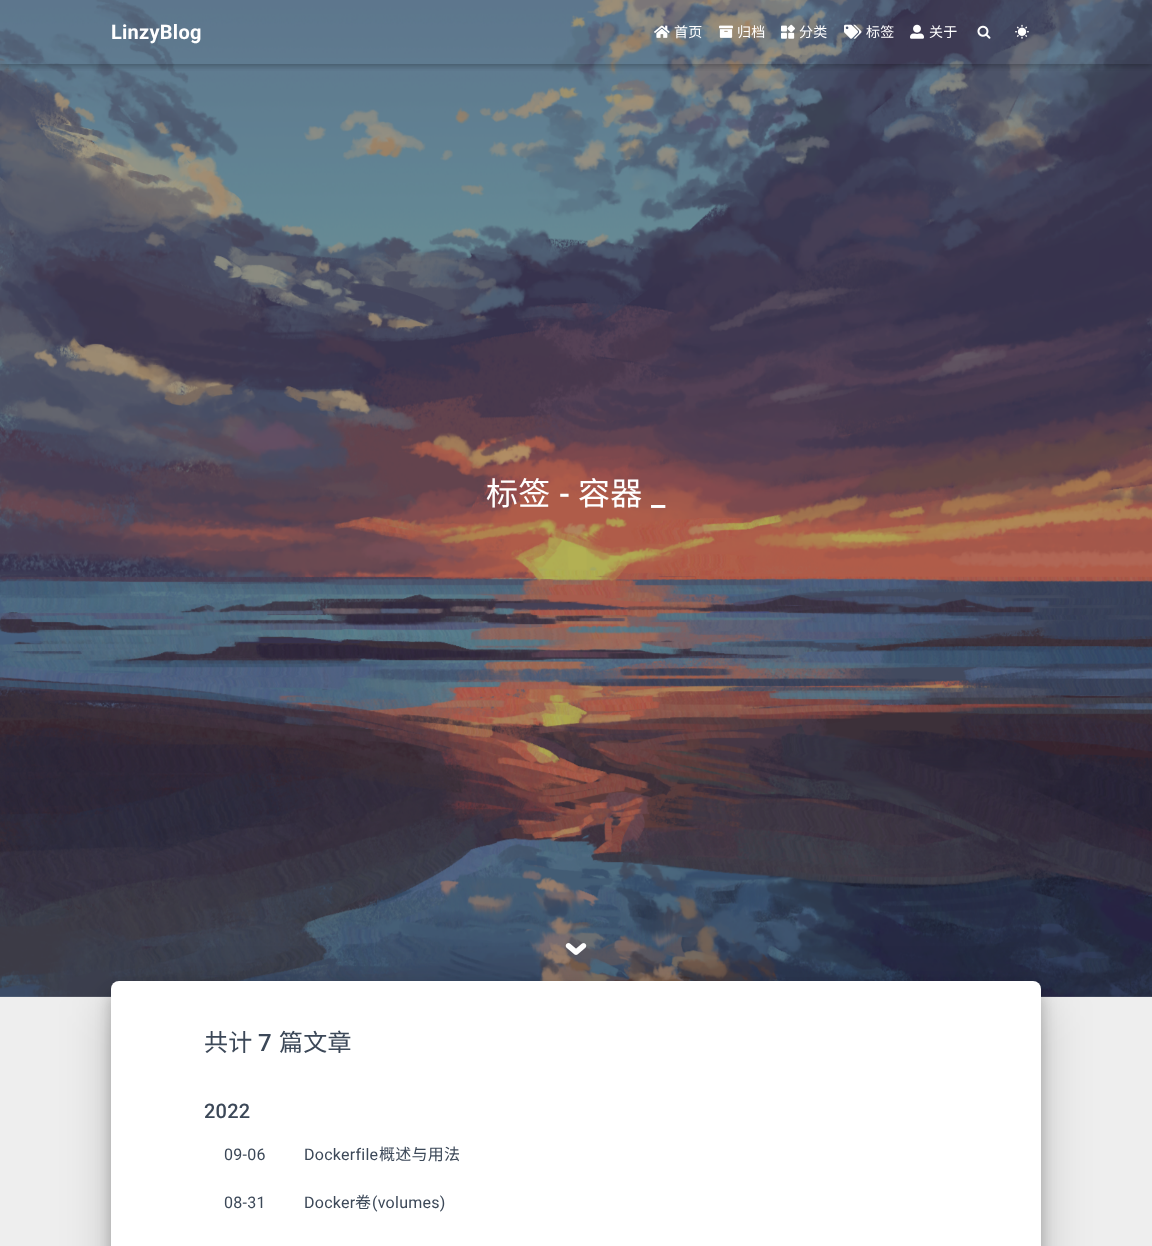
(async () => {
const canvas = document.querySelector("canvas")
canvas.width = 1152
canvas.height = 1246
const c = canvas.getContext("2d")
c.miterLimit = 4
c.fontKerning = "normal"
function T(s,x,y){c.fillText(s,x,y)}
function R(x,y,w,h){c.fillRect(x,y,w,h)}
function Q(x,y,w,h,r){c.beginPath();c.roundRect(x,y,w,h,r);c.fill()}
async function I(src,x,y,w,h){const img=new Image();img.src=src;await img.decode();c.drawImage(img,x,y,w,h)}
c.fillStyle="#eee"
R(0,0,1152,1246)
await I("8.png",0,0,1152,997)
c.save()
c.beginPath()
c.rect(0,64,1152,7)
c.clip()
c.fillStyle="#0000001f"
c.filter="blur(5px)"
c.beginPath()
c.rect(0,2,1152,64)
c.fill()
c.filter="none"
c.restore()
c.save()
c.beginPath()
c.rect(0,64,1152,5)
c.clip()
c.fillStyle="#00000029"
c.filter="blur(2.5px)"
c.beginPath()
c.rect(0,2,1152,64)
c.fill()
c.filter="none"
c.restore()
c.letterSpacing="0.25px"
c.font="bold 20px Roboto"
c.fillStyle="#fff"
T("LinzyBlog",111,39)
await I("1.png",654,25,16,13)
c.font="14px Noto Sans CJK SC"
T("首页",674,37)
await I("2.png",719,25,14,13)
T("归档",737,37)
await I("3.png",781,24,14,15)
T("分类",799,37)
await I("4.png",844,24,18,15)
T("标签",866,37)
await I("5.png",910,24,14,15)
T("关于",929,37)
await I("6.png",977,25,14,14)
await I("7.png",1015,24,14,15)
c.font="32px Noto Sans CJK SC"
T("标签",486,505)
c.font="500 32px Roboto"
T("-",559,505)
c.font="32px Noto Sans CJK SC"
T("容器",578,505)
c.font="500 32px Roboto"
T("_",651,505)
await I("9.png",565,943,22,12)
c.fillStyle="#00000030"
c.filter="blur(25px)"
c.beginPath()
c.roundRect(111,998,930,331,8)
c.fill()
c.filter="none"
c.fillStyle="#0000003d"
c.filter="blur(7.5px)"
c.beginPath()
c.roundRect(111,993,930,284,8)
c.fill()
c.filter="none"
c.fillStyle="#fff"
Q(111,981,930,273,8)
c.font="24px Noto Sans CJK SC"
c.fillStyle="#3c4858"
T("共计",204,1051)
c.font="500 24px Roboto"
T("7",258,1051)
c.font="24px Noto Sans CJK SC"
T("篇文章",279,1051)
c.font="500 20px Roboto"
T("2022",204,1118)
c.font="16px Roboto"
T("09-06",224,1160)
T("Dockerfile",304,1160)
c.font="16px Noto Sans CJK SC"
T("概述与用法",379,1160)
c.font="16px Roboto"
T("08-31",224,1208)
T("Docker",304,1208)
c.font="16px Noto Sans CJK SC"
T("卷",355,1208)
c.font="16px Roboto"
T("(volumes)",372,1208)
})()
